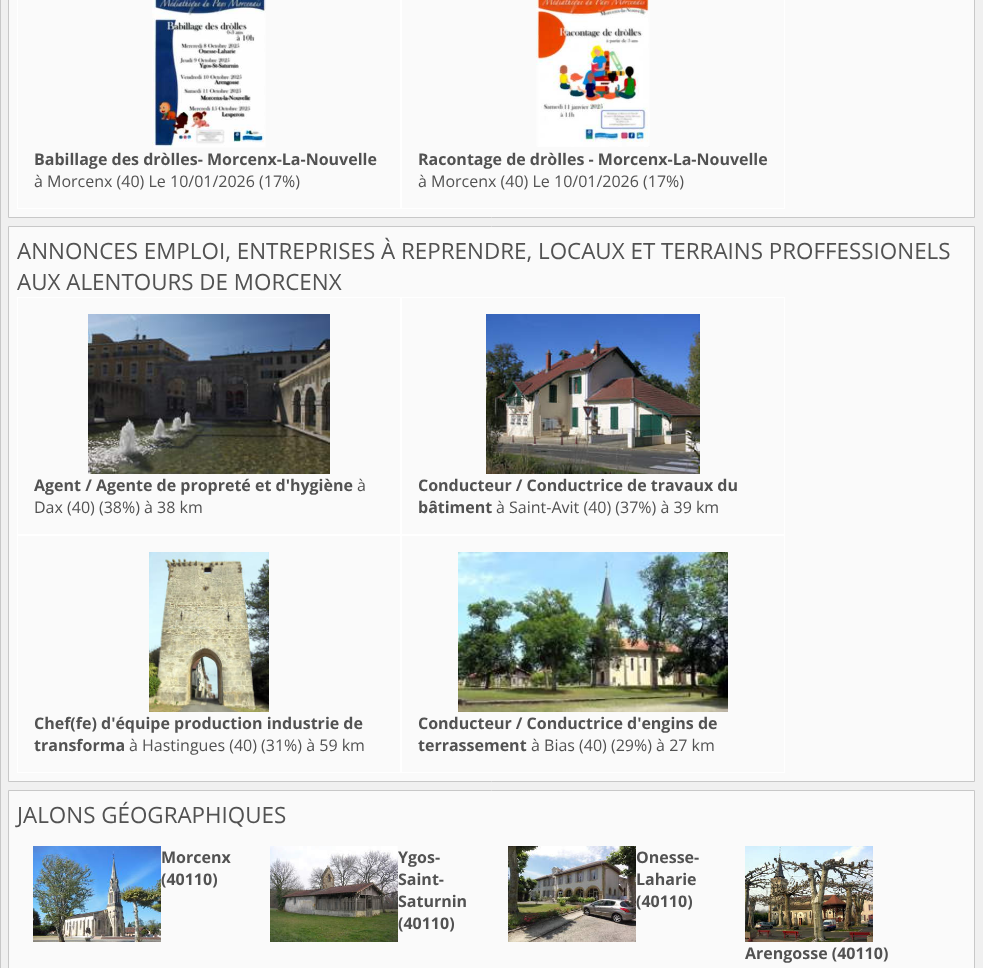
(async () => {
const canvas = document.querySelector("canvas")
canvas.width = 983
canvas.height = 968
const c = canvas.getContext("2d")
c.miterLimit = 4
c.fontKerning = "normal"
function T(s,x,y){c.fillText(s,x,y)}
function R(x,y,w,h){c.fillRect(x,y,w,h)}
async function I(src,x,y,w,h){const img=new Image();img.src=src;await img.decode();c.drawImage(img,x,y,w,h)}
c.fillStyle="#f0f0f0"
R(0,0,983,968)
c.fillStyle="#c8c8c8"
R(0,0,1,968)
c.fillStyle="#fafafa"
c.beginPath()
c.rect(8.5,-.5,966,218)
c.fill()
c.strokeStyle="#c8c8c8"
c.stroke()
c.strokeStyle="#fff"
c.strokeRect(17.5,-.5,383,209)
await I("1.png",152,0,114,148)
c.font="bold 16px Open Sans"
c.fillStyle="#525252"
T("Babillage des dròlles- Morcenx-La-Nouvelle",34,165)
c.font="16px Open Sans"
T("à Morcenx (40) Le 10/01/2026 (17%)",34,187)
c.strokeRect(401.5,-.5,383,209)
await I("2.png",536,0,114,147)
c.font="bold 16px Open Sans"
T("Racontage de dròlles - Morcenx-La-Nouvelle",418,165)
c.font="16px Open Sans"
T("à Morcenx (40) Le 10/01/2026 (17%)",418,187)
c.fillStyle="#fafafa"
c.beginPath()
c.rect(8.5,226.5,966,555)
c.fill()
c.strokeStyle="#c8c8c8"
c.stroke()
c.font="22.4px Open Sans"
c.fillStyle="#525252"
T("ANNONCES EMPLOI, ENTREPRISES À REPRENDRE, LOCAUX ET TERRAINS PROFFESSIONELS",17,259)
T("AUX ALENTOURS DE MORCENX",17,290)
c.strokeStyle="#fff"
c.strokeRect(17.5,297.5,383,237)
await I("3.png",88,314,242,160)
c.font="bold 16px Open Sans"
T("Agent / Agente de propreté et d'hygiène",34,491)
c.font="16px Open Sans"
T("à",357,491)
T("Dax (40) (38%) à 38 km",34,513)
c.strokeRect(401.5,297.5,383,237)
await I("4.png",486,314,214,160)
c.font="bold 16px Open Sans"
T("Conducteur / Conductrice de travaux du",418,491)
T("bâtiment",418,513)
c.font="16px Open Sans"
T("à Saint-Avit (40) (37%) à 39 km",496,513)
c.strokeRect(17.5,535.5,383,237)
await I("5.png",149,552,120,160)
c.font="bold 16px Open Sans"
T("Chef(fe) d'équipe production industrie de",34,729)
T("transforma",34,751)
c.font="16px Open Sans"
T("à Hastingues (40) (31%) à 59 km",129,751)
c.strokeRect(401.5,535.5,383,237)
await I("6.png",458,552,270,160)
c.font="bold 16px Open Sans"
T("Conducteur / Conductrice d'engins de",418,729)
T("terrassement",418,751)
c.font="16px Open Sans"
T("à Bias (40) (29%) à 27 km",531,751)
c.fillStyle="#fafafa"
c.beginPath()
c.rect(8.5,790.5,966,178)
c.fill()
c.strokeStyle="#c8c8c8"
c.stroke()
c.font="22.4px Open Sans"
c.fillStyle="#525252"
T("JALONS GÉOGRAPHIQUES",17,823)
await I("7.png",33,846,128,96)
c.font="bold 16px Open Sans"
T("Morcenx",161,863)
T("(40110)",161,885)
await I("8.png",270,846,128,96)
T("Ygos-",398,863)
T("Saint-",398,885)
T("Saturnin",398,907)
T("(40110)",398,929)
await I("9.png",508,846,128,96)
T("Onesse-",636,863)
T("Laharie",636,885)
T("(40110)",636,907)
await I("10.png",745,846,128,96)
T("Arengosse (40110)",745,959)
})()
